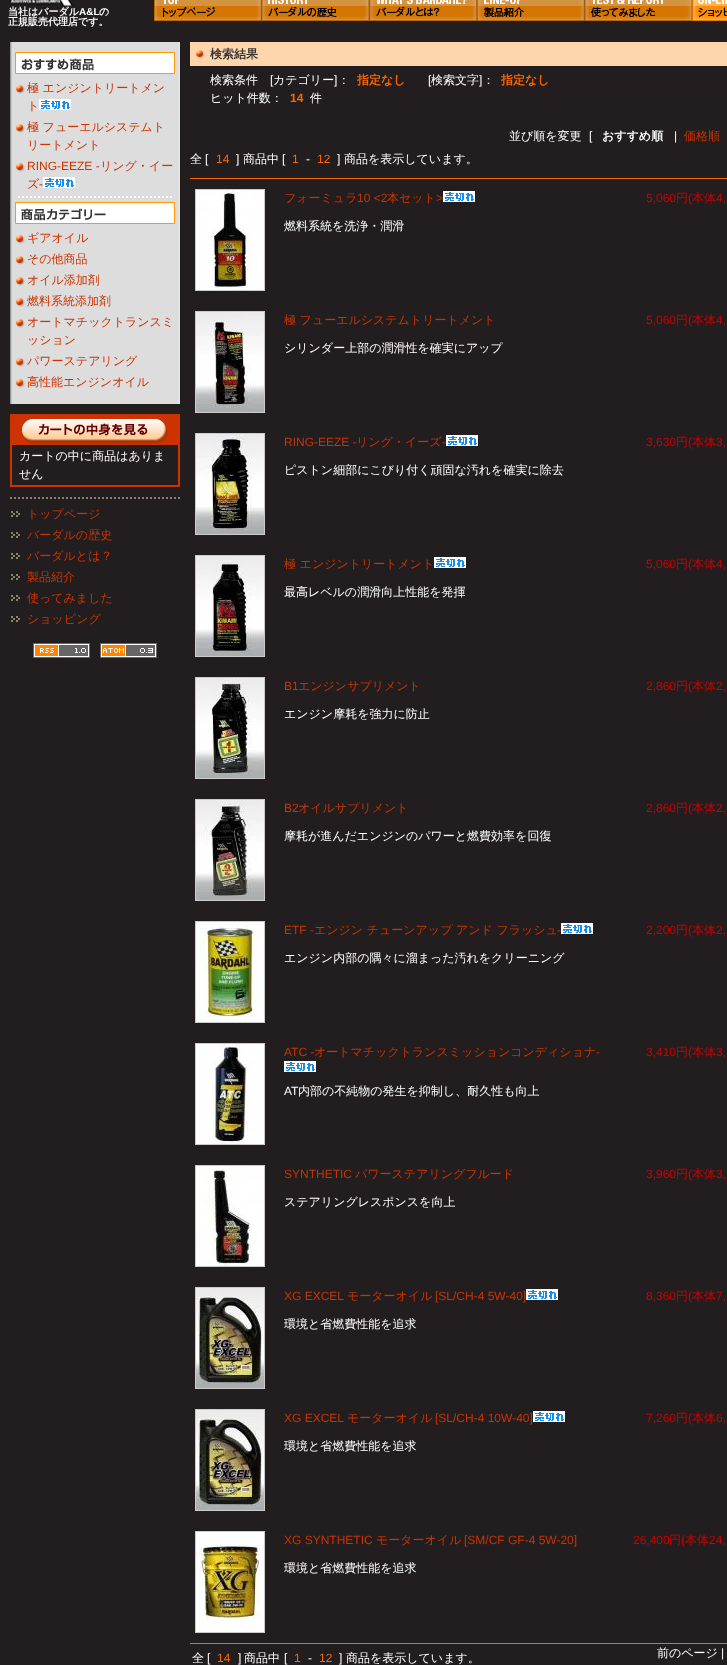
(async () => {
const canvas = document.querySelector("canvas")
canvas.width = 727
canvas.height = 1665
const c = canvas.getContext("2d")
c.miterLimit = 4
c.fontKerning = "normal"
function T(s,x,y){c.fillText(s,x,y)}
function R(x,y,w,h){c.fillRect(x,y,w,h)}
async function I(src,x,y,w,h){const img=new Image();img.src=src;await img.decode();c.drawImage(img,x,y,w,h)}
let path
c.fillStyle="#221e1f"
R(0,0,727,1665)
await I("1.png",9,0,64,7)
c.font="bold 10px WenQuanYi Zen Hei"
c.fillStyle="#fff"
T("当社はバーダル",8,15)
c.font="bold 10px Liberation Sans"
T("A&L",79,15)
c.font="bold 10px WenQuanYi Zen Hei"
T("の",99,15)
T("正規販売代理店です。",8,25)
await I("2.png",154,0,108,21)
await I("3.png",262,0,107,21)
await I("4.png",369,0,108,21)
await I("5.png",477,0,108,21)
await I("6.png",585,0,107,21)
await I("7.png",692,0,35,21)
await I("8.png",10,42,170,362)
c.beginPath()
c.rect(15.5,52.5,159,21)
c.fill()
c.strokeStyle="#f90"
c.stroke()
await I("9.png",21,58,73,13)
await I("10.png",16,85,9,9)
c.font="500 12px WenQuanYi Zen Hei"
c.fillStyle="#c30"
T("極 エンジントリートメン",27,92)
T("ト",27,110)
await I("11.png",39,99,32,11)
await I("10.png",16,124,9,9)
T("極 フューエルシステムト",27,131)
T("リートメント",27,149)
await I("10.png",16,163,9,9)
c.font="12px Liberation Sans"
T("RING-EEZE -",27,170)
c.font="500 12px WenQuanYi Zen Hei"
T("リング・イー",100,170)
T("ズ",27,188)
c.font="12px Liberation Sans"
T("-",39,188)
await I("11.png",43,177,32,11)
path = new Path2D("M18 197h154")
c.strokeStyle="#fff"
c.lineWidth=2
c.setLineDash([2,2])
c.stroke(path)
c.fillStyle="#fff"
c.beginPath()
c.rect(15.5,202.5,159,21)
c.fill()
c.strokeStyle="#f90"
c.lineWidth=1
c.setLineDash([])
c.stroke()
await I("12.png",21,208,85,13)
await I("10.png",16,235,9,9)
c.font="500 12px WenQuanYi Zen Hei"
c.fillStyle="#c30"
T("ギアオイル",27,242)
await I("10.png",16,256,9,9)
T("その他商品",27,263)
await I("10.png",16,277,9,9)
T("オイル添加剤",27,284)
await I("10.png",16,298,9,9)
T("燃料系統添加剤",27,305)
await I("10.png",16,319,9,9)
T("オートマチックトランスミ",27,326)
T("ッション",27,344)
await I("10.png",16,358,9,9)
T("パワーステアリング",27,365)
await I("10.png",16,379,9,9)
T("高性能エンジンオイル",27,386)
R(10,485,170,2)
R(10,414,170,31)
await I("13.png",22,419,146,25)
R(178,445,2,40)
R(10,445,2,40)
c.fillStyle="#fff"
T("カートの中に商品はありま",19,460)
T("せん",19,478)
path = new Path2D("M10 498h170")
c.strokeStyle="#8f826c"
c.lineWidth=2
c.setLineDash([2,2])
c.stroke(path)
await I("14.png",11,511,9,6)
c.fillStyle="#c30"
T("トップページ",27,518)
await I("14.png",11,532,9,6)
T("バーダルの歴史",27,539)
await I("14.png",11,553,9,6)
T("バーダルとは？",27,560)
await I("14.png",11,574,9,6)
T("製品紹介",27,581)
await I("14.png",11,595,9,6)
T("使ってみました",27,602)
await I("14.png",11,616,9,6)
T("ショッピング",27,623)
await I("15.png",33,643,57,15)
await I("16.png",100,643,57,15)
c.fillStyle="#ffd5ac"
R(190,42,537,24)
await I("17.png",196,50,9,9)
c.font="bold 12px WenQuanYi Zen Hei"
c.fillStyle="#333"
T("検索結果",210,58)
c.font="500 12px WenQuanYi Zen Hei"
c.fillStyle="#fff"
T("検索条件",210,84)
c.font="12px Liberation Sans"
T("[",270,84)
c.font="500 12px WenQuanYi Zen Hei"
T("カテゴリー ：",273,84)
c.font="bold 12px WenQuanYi Zen Hei"
c.fillStyle="#f60"
T("指定なし",357,84)
c.font="500 12px WenQuanYi Zen Hei"
c.fillStyle="#fff"
T("検索文字 ：",431,84)
c.font="bold 12px WenQuanYi Zen Hei"
c.fillStyle="#f60"
T("指定なし",501,84)
c.font="12px Liberation Sans"
c.fillStyle="#fff"
T("]",334,84)
T("[",428,84)
T("]",479,84)
c.font="500 12px WenQuanYi Zen Hei"
T("ヒット件数：",210,102)
c.font="bold 12px Liberation Sans"
c.fillStyle="#f60"
T("14",290,102)
c.font="500 12px WenQuanYi Zen Hei"
c.fillStyle="#fff"
T("件",310,102)
T("並び順を変更",509,140)
c.font="12px Liberation Sans"
T("[",589,140)
c.font="bold 12px WenQuanYi Zen Hei"
T("おすすめ順",602,140)
c.font="12px Liberation Sans"
T("|",674,140)
c.font="500 12px WenQuanYi Zen Hei"
c.fillStyle="#c30"
T("価格順",684,140)
c.fillStyle="#fff"
T("全",190,163)
c.font="12px Liberation Sans"
T("[",205,163)
c.fillStyle="#f60"
T("14",216,163)
c.fillStyle="#fff"
T("]",236,163)
c.font="500 12px WenQuanYi Zen Hei"
T("商品中",243,163)
c.font="12px Liberation Sans"
T("[",282,163)
c.fillStyle="#f60"
T("1",292,163)
c.fillStyle="#fff"
T("-",306,163)
c.fillStyle="#f60"
T("12",317,163)
c.fillStyle="#fff"
T("]",337,163)
c.font="500 12px WenQuanYi Zen Hei"
T("商品を表示しています。",344,163)
c.fillStyle="#f60"
R(190,178,537,1)
R(190,1643,537,1)
c.strokeStyle="#ccc"
c.lineWidth=1
c.setLineDash([])
c.strokeRect(195.5,189.5,69,101)
await I("18.png",196,190,68,100)
c.fillStyle="#c30"
T("フォーミュラ",284,202)
c.font="12px Liberation Sans"
T("10 <2",357,202)
c.font="500 12px WenQuanYi Zen Hei"
T("本セット",387,202)
c.font="12px Liberation Sans"
T(">",436,202)
await I("11.png",443,191,32,11)
c.fillStyle="#c00"
T("5,060",646,202)
c.font="500 12px WenQuanYi Zen Hei"
T("円",676,202)
c.font="12px Liberation Sans"
T("(",688,202)
c.font="500 12px WenQuanYi Zen Hei"
T("本体",692,202)
c.font="12px Liberation Sans"
T("4,",716,202)
c.font="500 12px WenQuanYi Zen Hei"
c.fillStyle="#fff"
T("燃料系統を洗浄・潤滑",284,230)
c.strokeRect(195.5,311.5,69,101)
await I("19.png",196,312,68,100)
c.fillStyle="#c30"
T("極 フューエルシステムトリートメント",284,324)
c.font="12px Liberation Sans"
c.fillStyle="#c00"
T("5,060",646,324)
c.font="500 12px WenQuanYi Zen Hei"
T("円",676,324)
c.font="12px Liberation Sans"
T("(",688,324)
c.font="500 12px WenQuanYi Zen Hei"
T("本体",692,324)
c.font="12px Liberation Sans"
T("4,",716,324)
c.font="500 12px WenQuanYi Zen Hei"
c.fillStyle="#fff"
T("シリンダー上部の潤滑性を確実にアップ",284,352)
c.strokeRect(195.5,433.5,69,101)
await I("20.png",196,434,68,100)
c.font="12px Liberation Sans"
c.fillStyle="#c30"
T("RING-EEZE -",284,446)
c.font="500 12px WenQuanYi Zen Hei"
T("リング・イーズ",356,446)
c.font="12px Liberation Sans"
T("-",442,446)
await I("11.png",446,435,32,11)
c.fillStyle="#c00"
T("3,630",646,446)
c.font="500 12px WenQuanYi Zen Hei"
T("円",676,446)
c.font="12px Liberation Sans"
T("(",688,446)
c.font="500 12px WenQuanYi Zen Hei"
T("本体",692,446)
c.font="12px Liberation Sans"
T("3,",716,446)
c.font="500 12px WenQuanYi Zen Hei"
c.fillStyle="#fff"
T("ピストン細部にこびり付く頑固な汚れを確実に除去",284,474)
c.strokeRect(195.5,555.5,69,101)
await I("21.png",196,556,68,100)
c.fillStyle="#c30"
T("極 エンジントリートメント",284,568)
await I("11.png",434,557,32,11)
c.font="12px Liberation Sans"
c.fillStyle="#c00"
T("5,060",646,568)
c.font="500 12px WenQuanYi Zen Hei"
T("円",676,568)
c.font="12px Liberation Sans"
T("(",688,568)
c.font="500 12px WenQuanYi Zen Hei"
T("本体",692,568)
c.font="12px Liberation Sans"
T("4,",716,568)
c.font="500 12px WenQuanYi Zen Hei"
c.fillStyle="#fff"
T("最高レベルの潤滑向上性能を発揮",284,596)
c.strokeRect(195.5,677.5,69,101)
await I("22.png",196,678,68,100)
c.font="12px Liberation Sans"
c.fillStyle="#c30"
T("B1",284,690)
c.font="500 12px WenQuanYi Zen Hei"
T("エンジンサプリメント",298,690)
c.font="12px Liberation Sans"
c.fillStyle="#c00"
T("2,860",646,690)
c.font="500 12px WenQuanYi Zen Hei"
T("円",676,690)
c.font="12px Liberation Sans"
T("(",688,690)
c.font="500 12px WenQuanYi Zen Hei"
T("本体",692,690)
c.font="12px Liberation Sans"
T("2,",716,690)
c.font="500 12px WenQuanYi Zen Hei"
c.fillStyle="#fff"
T("エンジン摩耗を強力に防止",284,718)
c.strokeRect(195.5,799.5,69,101)
await I("23.png",196,800,68,100)
c.font="12px Liberation Sans"
c.fillStyle="#c30"
T("B2",284,812)
c.font="500 12px WenQuanYi Zen Hei"
T("オイルサプリメント",298,812)
c.font="12px Liberation Sans"
c.fillStyle="#c00"
T("2,860",646,812)
c.font="500 12px WenQuanYi Zen Hei"
T("円",676,812)
c.font="12px Liberation Sans"
T("(",688,812)
c.font="500 12px WenQuanYi Zen Hei"
T("本体",692,812)
c.font="12px Liberation Sans"
T("2,",716,812)
c.font="500 12px WenQuanYi Zen Hei"
c.fillStyle="#fff"
T("摩耗が進んだエンジンのパワーと燃費効率を回復",284,840)
c.strokeRect(195.5,921.5,69,101)
await I("24.png",196,922,68,100)
c.font="12px Liberation Sans"
c.fillStyle="#c30"
T("ETF -",284,934)
c.font="500 12px WenQuanYi Zen Hei"
T("エンジン チューンアップ アンド フラッシュ",314,934)
c.font="12px Liberation Sans"
T("-",557,934)
await I("11.png",561,923,32,11)
c.fillStyle="#c00"
T("2,200",646,934)
c.font="500 12px WenQuanYi Zen Hei"
T("円",676,934)
c.font="12px Liberation Sans"
T("(",688,934)
c.font="500 12px WenQuanYi Zen Hei"
T("本体",692,934)
c.font="12px Liberation Sans"
T("2,",716,934)
c.font="500 12px WenQuanYi Zen Hei"
c.fillStyle="#fff"
T("エンジン内部の隅々に溜まった汚れをクリーニング",284,962)
c.strokeRect(195.5,1043.5,69,101)
await I("25.png",196,1044,68,100)
c.font="12px Liberation Sans"
c.fillStyle="#c30"
T("ATC -",284,1056)
c.font="500 12px WenQuanYi Zen Hei"
T("オートマチックトランスミッションコンディショナ",314,1056)
c.font="12px Liberation Sans"
T("-",596,1056)
await I("11.png",284,1061,32,11)
c.fillStyle="#c00"
T("3,410",646,1056)
c.font="500 12px WenQuanYi Zen Hei"
T("円",676,1056)
c.font="12px Liberation Sans"
T("(",688,1056)
c.font="500 12px WenQuanYi Zen Hei"
T("本体",692,1056)
c.font="12px Liberation Sans"
T("3,",716,1056)
c.fillStyle="#fff"
T("AT",284,1095)
c.font="500 12px WenQuanYi Zen Hei"
T("内部の不純物の発生を抑制し、耐久性も向上",298,1095)
c.strokeRect(195.5,1165.5,69,101)
await I("26.png",196,1166,68,100)
c.font="12px Liberation Sans"
c.fillStyle="#c30"
T("SYNTHETIC",284,1178)
c.font="500 12px WenQuanYi Zen Hei"
T("パワーステアリングフルード",355,1178)
c.font="12px Liberation Sans"
c.fillStyle="#c00"
T("3,960",646,1178)
c.font="500 12px WenQuanYi Zen Hei"
T("円",676,1178)
c.font="12px Liberation Sans"
T("(",688,1178)
c.font="500 12px WenQuanYi Zen Hei"
T("本体",692,1178)
c.font="12px Liberation Sans"
T("3,",716,1178)
c.font="500 12px WenQuanYi Zen Hei"
c.fillStyle="#fff"
T("ステアリングレスポンスを向上",284,1206)
c.strokeRect(195.5,1287.5,69,101)
await I("27.png",196,1288,68,100)
c.font="12px Liberation Sans"
c.fillStyle="#c30"
T("XG EXCEL",284,1300)
c.font="500 12px WenQuanYi Zen Hei"
T("モーターオイル",347,1300)
c.font="12px Liberation Sans"
T("[SL/CH-4 5W-40]",435,1300)
await I("11.png",526,1289,32,11)
c.fillStyle="#c00"
T("8,360",646,1300)
c.font="500 12px WenQuanYi Zen Hei"
T("円",676,1300)
c.font="12px Liberation Sans"
T("(",688,1300)
c.font="500 12px WenQuanYi Zen Hei"
T("本体",692,1300)
c.font="12px Liberation Sans"
T("7,",716,1300)
c.font="500 12px WenQuanYi Zen Hei"
c.fillStyle="#fff"
T("環境と省燃費性能を追求",284,1328)
c.strokeRect(195.5,1409.5,69,101)
await I("27.png",196,1410,68,100)
c.font="12px Liberation Sans"
c.fillStyle="#c30"
T("XG EXCEL",284,1422)
c.font="500 12px WenQuanYi Zen Hei"
T("モーターオイル",347,1422)
c.font="12px Liberation Sans"
T("[SL/CH-4 10W-40]",435,1422)
await I("11.png",533,1411,32,11)
c.fillStyle="#c00"
T("7,260",646,1422)
c.font="500 12px WenQuanYi Zen Hei"
T("円",676,1422)
c.font="12px Liberation Sans"
T("(",688,1422)
c.font="500 12px WenQuanYi Zen Hei"
T("本体",692,1422)
c.font="12px Liberation Sans"
T("6,",716,1422)
c.font="500 12px WenQuanYi Zen Hei"
c.fillStyle="#fff"
T("環境と省燃費性能を追求",284,1450)
c.strokeRect(195.5,1531.5,69,101)
await I("28.png",196,1532,68,100)
c.font="12px Liberation Sans"
c.fillStyle="#c30"
T("XG SYNTHETIC",284,1544)
c.font="500 12px WenQuanYi Zen Hei"
T("モーターオイル",376,1544)
c.font="12px Liberation Sans"
T("[SM/CF GF-4 5W-20]",464,1544)
c.fillStyle="#c00"
T("26,400",633,1544)
c.font="500 12px WenQuanYi Zen Hei"
T("円",669,1544)
c.font="12px Liberation Sans"
T("(",681,1544)
c.font="500 12px WenQuanYi Zen Hei"
T("本体",685,1544)
c.font="12px Liberation Sans"
T("24,",709,1544)
c.font="500 12px WenQuanYi Zen Hei"
c.fillStyle="#fff"
T("環境と省燃費性能を追求",284,1572)
T("全",192,1662)
c.font="12px Liberation Sans"
T("[",207,1662)
c.fillStyle="#f60"
T("14",217,1662)
c.fillStyle="#fff"
T("]",238,1662)
c.font="500 12px WenQuanYi Zen Hei"
T("商品中",244,1662)
c.font="12px Liberation Sans"
T("[",284,1662)
c.fillStyle="#f60"
T("1",294,1662)
c.fillStyle="#fff"
T("-",308,1662)
c.fillStyle="#f60"
T("12",319,1662)
c.fillStyle="#fff"
T("]",339,1662)
c.font="500 12px WenQuanYi Zen Hei"
T("商品を表示しています。",346,1662)
T("前のページ",657,1657)
c.font="12px Liberation Sans"
T("|",721,1657)
})()
